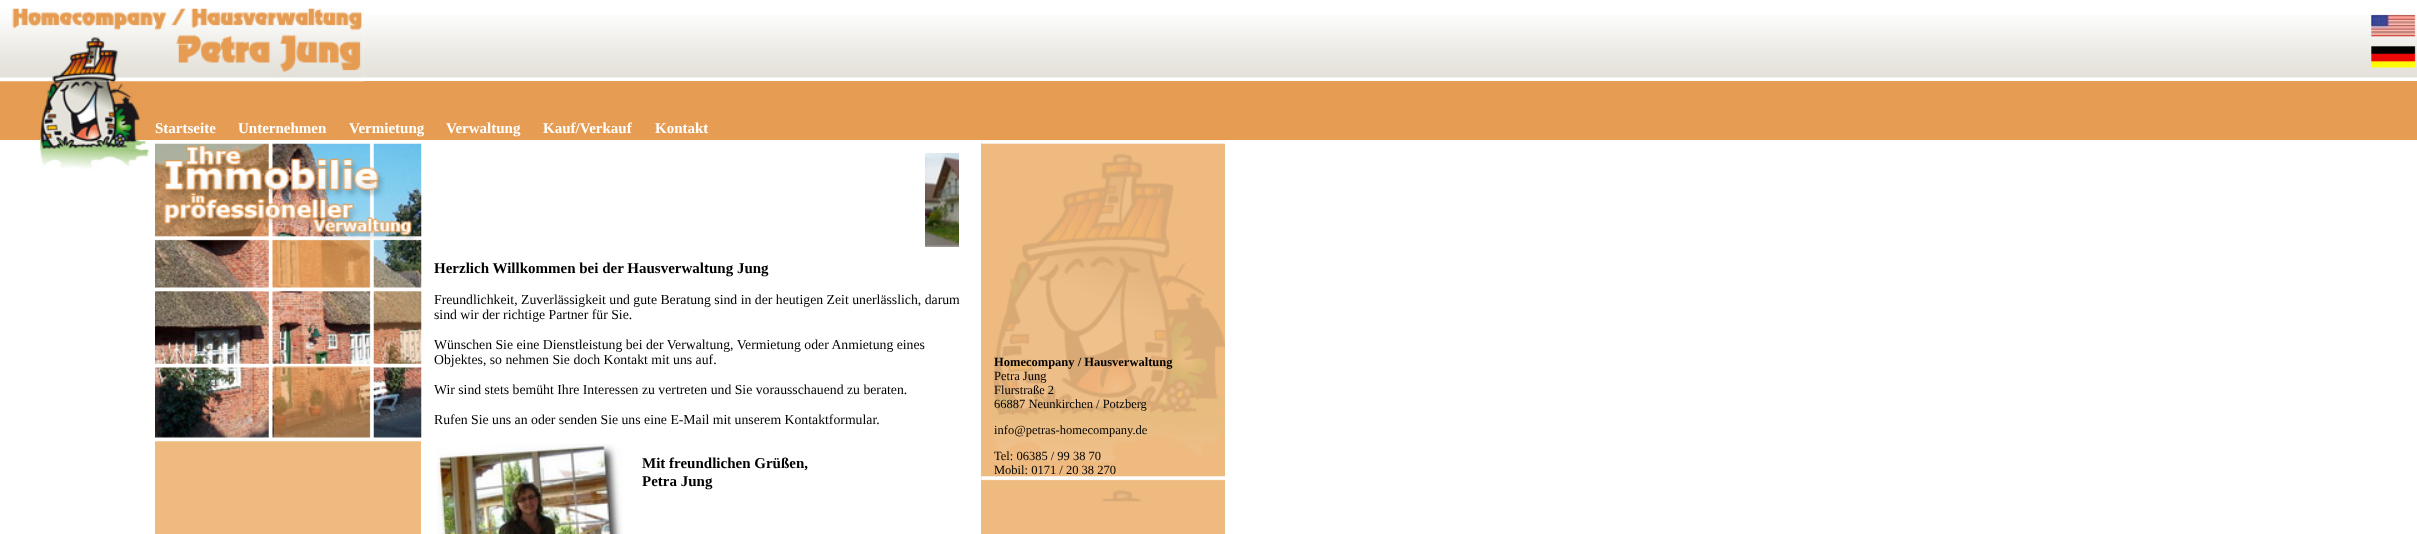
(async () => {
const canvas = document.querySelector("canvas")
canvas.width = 2417
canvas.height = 534
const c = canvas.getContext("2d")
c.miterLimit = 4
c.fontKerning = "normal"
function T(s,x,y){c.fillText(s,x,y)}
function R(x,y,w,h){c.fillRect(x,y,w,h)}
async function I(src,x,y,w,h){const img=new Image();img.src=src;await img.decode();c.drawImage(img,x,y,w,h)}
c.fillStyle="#fff"
R(0,0,2417,534)
await I("1.png",0,8,155,74)
await I("3.png",363,15,2054,63)
c.fillStyle="#e69c52"
R(155,81,2262,59)
await I("2.png",155,8,209,74)
await I("4.png",2371,14,45,23)
await I("5.png",2371,46,45,22)
await I("6.png",0,81,155,59)
c.font="bold 15px Liberation Serif"
c.fillStyle="#fff"
T("Startseite",155,133)
T("Unternehmen",238,133)
T("Vermietung",349,133)
T("Verwaltung",446,133)
T("Kauf/Verkauf",543,133)
T("Kontakt",655,133)
await I("7.png",39,140,110,29)
c.fillStyle="#efba7f"
R(155,441,266,93)
await I("8.png",155,140,267,302)
await I("9.png",925,153,34,94)
c.fillStyle="#000"
T("Herzlich Willkommen bei der Hausverwaltung Jung",434,273)
c.font="13.75px Liberation Serif"
T("Freundlichkeit, Zuverlässigkeit und gute Beratung sind in der heutigen Zeit unerlässlich, darum",434,304)
T("sind wir der richtige Partner für Sie.",434,319)
T("Wünschen Sie eine Dienstleistung bei der Verwaltung, Vermietung oder Anmietung eines",434,349)
T("Objektes, so nehmen Sie doch Kontakt mit uns auf.",434,364)
T("Wir sind stets bemüht Ihre Interessen zu vertreten und Sie vorausschauend zu beraten.",434,394)
T("Rufen Sie uns an oder senden Sie uns eine E-Mail mit unserem Kontaktformular.",434,424)
await I("10.png",437,444,186,90)
c.font="bold 15px Liberation Serif"
T("Mit freundlichen Grüßen,",642,468)
T("Petra Jung",642,486)
c.fillStyle="#efba7f"
R(981,140,244,394)
await I("11.png",981,140,244,362)
c.font="bold 12.5px Liberation Serif"
c.fillStyle="#000"
T("Homecompany / Hausverwaltung",994,366)
c.font="12.5px Liberation Serif"
T("Petra Jung",994,380)
T("Flurstraße 2",994,394)
T("66887 Neunkirchen / Potzberg",994,408)
T("info@petras-homecompany.de",994,434)
T("Tel: 06385 / 99 38 70",994,460)
T("Mobil: 0171 / 20 38 270",994,474)
})()
